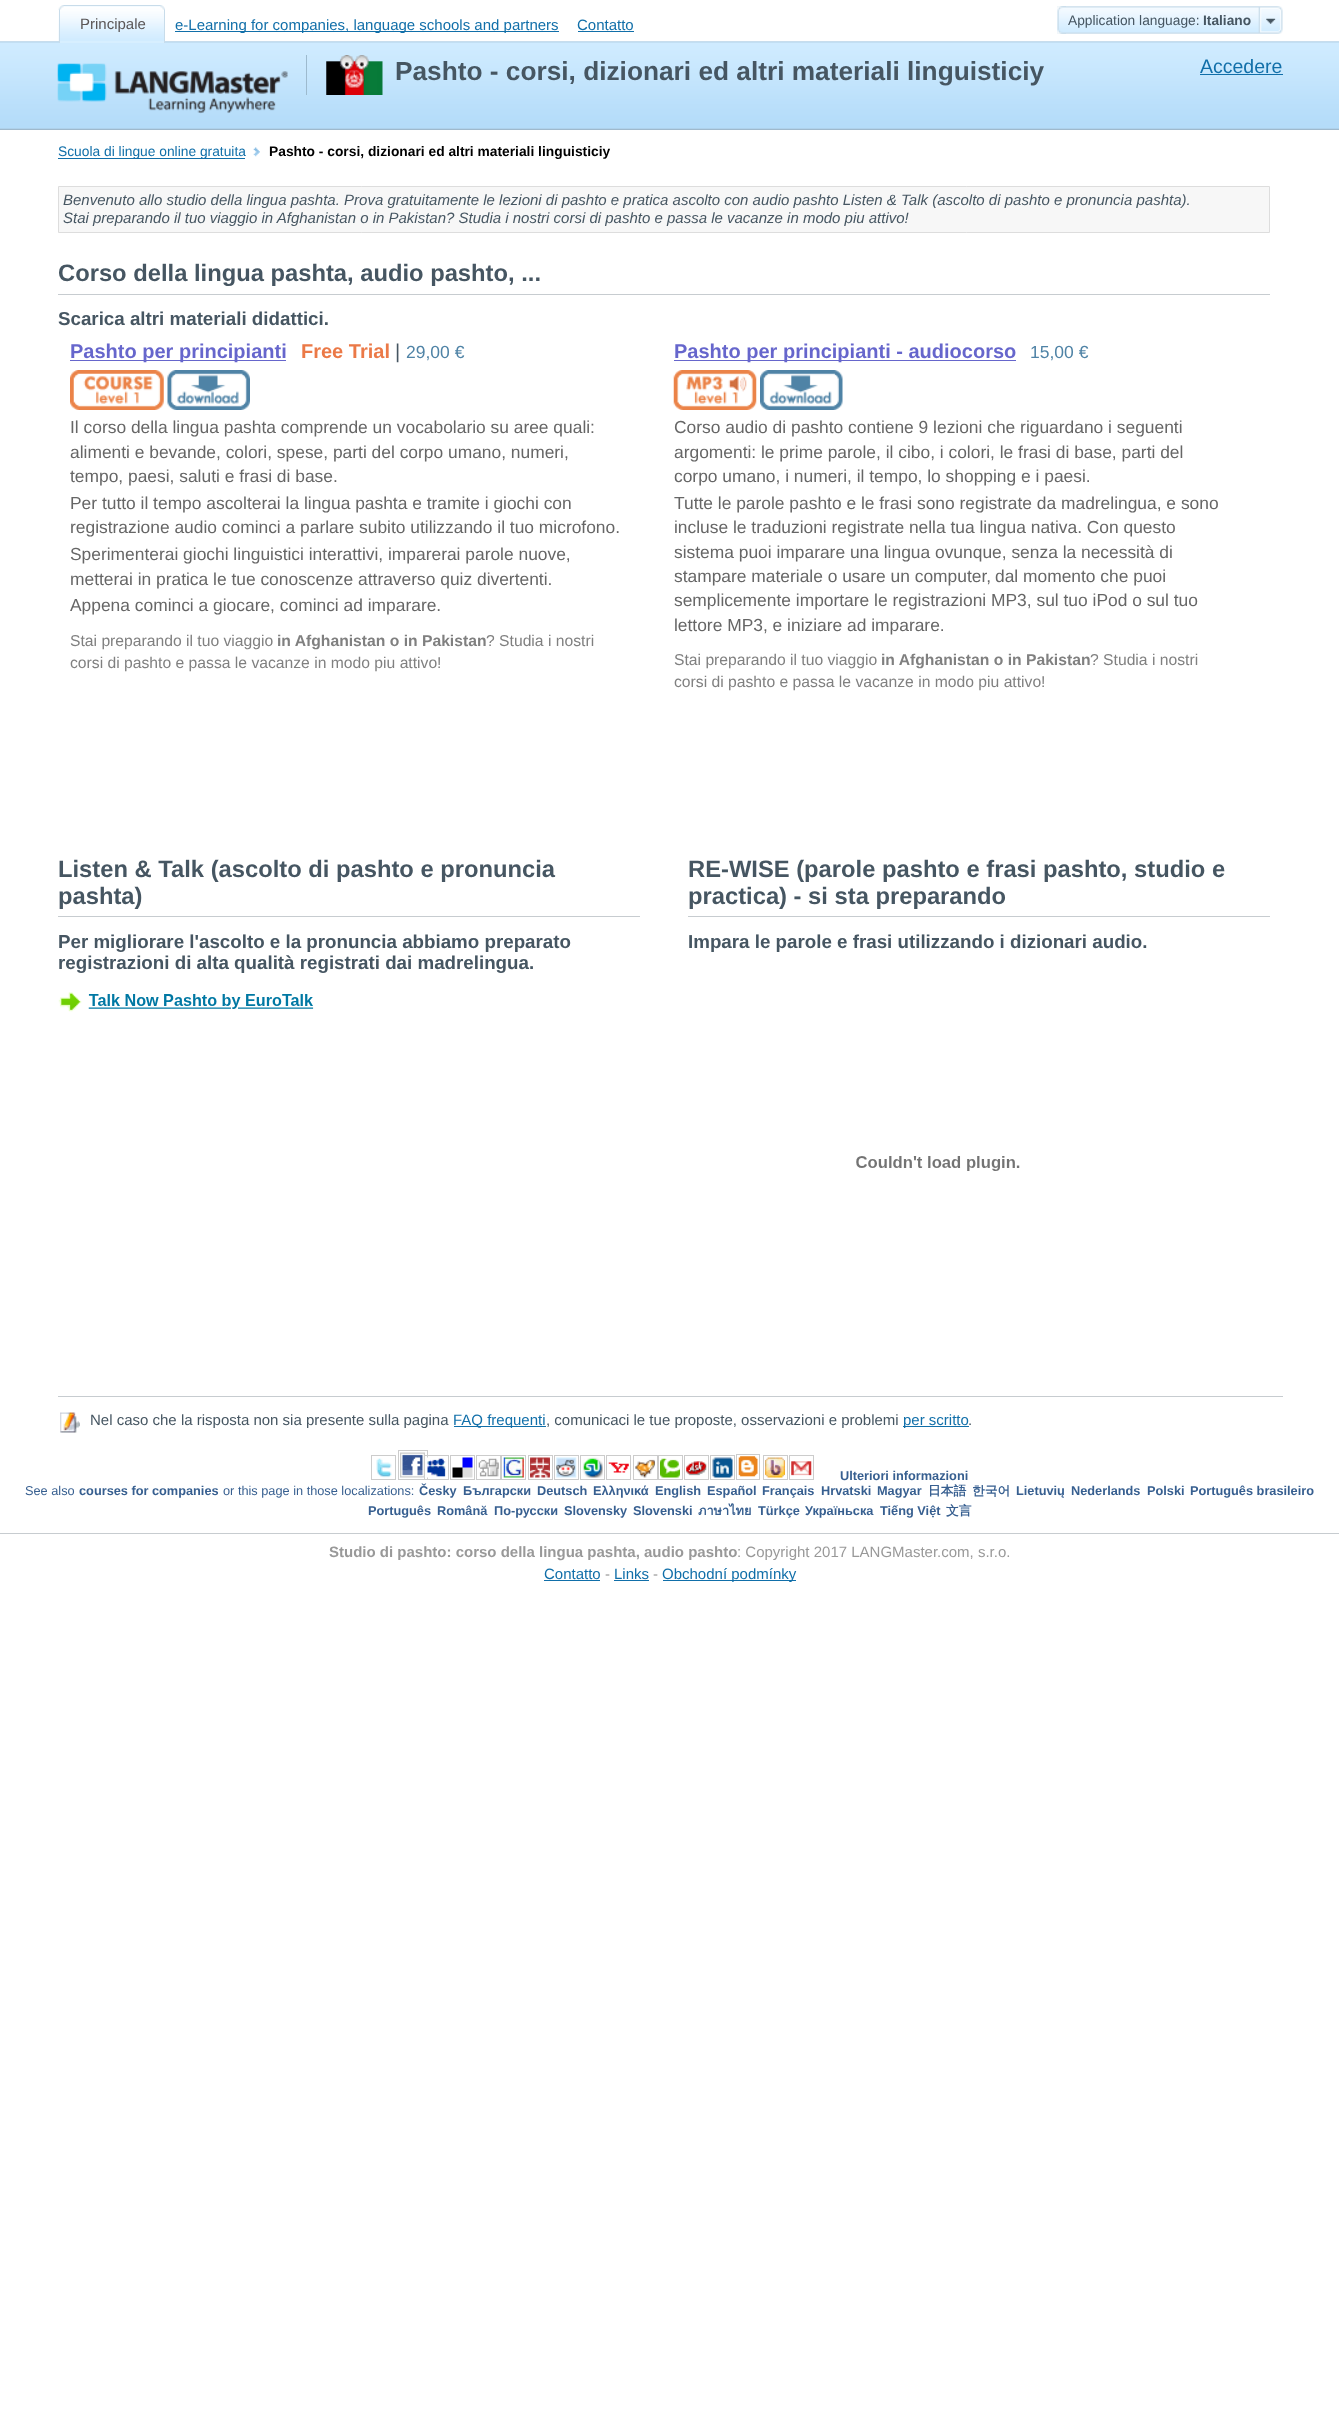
(async () => {
const canvas = document.querySelector("canvas")
canvas.width = 1339
canvas.height = 2435
const c = canvas.getContext("2d")
c.miterLimit = 4
c.fontKerning = "normal"
function T(s,x,y){c.fillText(s,x,y)}
function R(x,y,w,h){c.fillRect(x,y,w,h)}
async function I(src,x,y,w,h){const img=new Image();img.src=src;await img.decode();c.drawImage(img,x,y,w,h)}
c.fillStyle="#fff"
R(0,0,1339,2435)
await I("6.png",0,41,1339,89)
c.fillStyle="#d7efff"
R(60,6,104,37)
await I("1.png",58,6,106,35)
c.fillStyle="#c8dcea"
R(59,5,106,1)
R(164,5,1,38)
R(59,5,1,38)
await I("2.png",58,5,6,5)
await I("3.png",160,5,5,5)
c.font="15px Liberation Sans"
c.fillStyle="#5a5657"
T("Principale",80,29)
c.fillStyle="#116fa9"
R(175,31,384,1)
T("e-Learning for companies, language schools and partners",175,30)
T("Contatto",577,30)
R(578,31,56,1)
await I("4.png",1057,6,226,28)
await I("5.png",1057,6,9,28)
c.font="13.75px Liberation Sans"
c.fillStyle="#465662"
T("Application language:",1068,25)
c.font="bold 13.75px Liberation Sans"
T("Italiano",1203,25)
await I("7.png",57,63,231,51)
await I("8.png",326,55,57,40)
c.fillStyle="#9dbace"
R(306,55,1,40)
c.font="bold 26.25px Liberation Sans"
c.fillStyle="#465662"
T("Pashto - corsi, dizionari ed altri materiali linguisticiy",395,80)
c.font="19.5px Liberation Sans"
c.fillStyle="#116fa9"
T("Accedere",1200,73)
R(1200,74,83,1)
R(58,158,187,1)
c.font="13.8px Liberation Sans"
T("Scuola di lingue online gratuita",58,156)
await I("9.png",253,147,7,10)
c.font="bold 13.8px Liberation Sans"
c.fillStyle="#000"
T("Pashto - corsi, dizionari ed altri materiali linguisticiy",269,156)
c.fillStyle="#f7f7f7"
c.beginPath()
c.rect(58.5,186.5,1211,46)
c.fill()
c.strokeStyle="#ddd"
c.stroke()
c.font="italic 15px Liberation Sans"
c.fillStyle="#465662"
T("Benvenuto allo studio della lingua pashta. Prova gratuitamente le lezioni di pashto e pratica ascolto con audio pashto Listen & Talk (ascolto di pashto e pronuncia pashta).",63,205)
T("Stai preparando il tuo viaggio in Afghanistan o in Pakistan? Studia i nostri corsi di pashto e passa le vacanze in modo piu attivo!",63,223)
c.fillStyle="#c7ccd0"
R(58,294,1212,1)
c.font="bold 23.75px Liberation Sans"
c.fillStyle="#465662"
T("Corso della lingua pashta, audio pashto, ...",58,281)
c.font="bold 18.75px Liberation Sans"
T("Scarica altri materiali didattici.",58,325)
c.fillStyle="#66c"
R(70,360,216,1)
c.font="bold 20px Liberation Sans"
T("Pashto per principianti",70,358)
c.fillStyle="#eb7947"
T("Free Trial",301,358)
c.font="20px Liberation Sans"
c.fillStyle="#465662"
T("|",395,358)
c.font="17.5px Liberation Sans"
c.fillStyle="#4f83a6"
T("29,00 €",406,358)
await I("10.png",70,370,94,40)
await I("11.png",167,370,83,40)
c.font="17.4px Liberation Sans"
c.fillStyle="#666"
T("Il corso della lingua pashta comprende un vocabolario su aree quali:",70,433)
T("alimenti e bevande, colori, spese, parti del corpo umano, numeri,",70,458)
T("tempo, paesi, saluti e frasi di base.",70,482)
T("Per tutto il tempo ascolterai la lingua pashta e tramite i giochi con",70,509)
T("registrazione audio cominci a parlare subito utilizzando il tuo microfono.",70,533)
T("Sperimenterai giochi linguistici interattivi, imparerai parole nuove,",70,560)
T("metterai in pratica le tue conoscenze attraverso quiz divertenti.",70,585)
T("Appena cominci a giocare, cominci ad imparare.",70,611)
c.font="15.7px Liberation Sans"
c.fillStyle="#808080"
T("Stai preparando il tuo viaggio",70,646)
c.font="bold 15.7px Liberation Sans"
T("in Afghanistan o in Pakistan",277,646)
c.font="15.7px Liberation Sans"
T("? Studia i nostri",486,646)
T("corsi di pashto e passa le vacanze in modo piu attivo!",70,668)
c.fillStyle="#66c"
R(674,360,342,1)
c.font="bold 20px Liberation Sans"
T("Pashto per principianti - audiocorso",674,358)
c.font="17.5px Liberation Sans"
c.fillStyle="#4f83a6"
T("15,00 €",1030,358)
await I("12.png",673,370,84,40)
await I("13.png",760,370,83,40)
c.font="17.4px Liberation Sans"
c.fillStyle="#666"
T("Corso audio di pashto contiene 9 lezioni che riguardano i seguenti",674,433)
T("argomenti: le prime parole, il cibo, i colori, le frasi di base, parti del",674,458)
T("corpo umano, i numeri, il tempo, lo shopping e i paesi.",674,482)
T("Tutte le parole pashto e le frasi sono registrate da madrelingua, e sono",674,509)
T("incluse le traduzioni registrate nella tua lingua nativa. Con questo",674,533)
T("sistema puoi imparare una lingua ovunque, senza la necessità di",674,558)
T("stampare materiale o usare un computer,",674,582)
T("dal momento che puoi",995,582)
T("semplicemente importare le registrazioni MP3, sul tuo iPod o sul tuo",674,606)
T("lettore MP3, e iniziare ad imparare.",674,631)
c.font="15.7px Liberation Sans"
c.fillStyle="#808080"
T("Stai preparando il tuo viaggio",674,665)
c.font="bold 15.7px Liberation Sans"
T("in Afghanistan o in Pakistan",881,665)
c.font="15.7px Liberation Sans"
T("? Studia i nostri",1090,665)
T("corsi di pashto e passa le vacanze in modo piu attivo!",674,687)
c.fillStyle="#c7ccd0"
R(58,916,582,1)
c.font="bold 23.75px Liberation Sans"
c.fillStyle="#465662"
T("Listen & Talk (ascolto di pashto e pronuncia",58,877)
T("pashta)",58,904)
c.font="bold 18.75px Liberation Sans"
T("Per migliorare l'ascolto e la pronuncia abbiamo preparato",58,948)
T("registrazioni di alta qualità registrati dai madrelingua.",58,969)
await I("14.png",58,992,256,20)
c.fillStyle="#c7ccd0"
R(688,916,582,1)
c.font="bold 23.75px Liberation Sans"
c.fillStyle="#465662"
T("RE-WISE (parole pashto e frasi pashto, studio e",688,877)
T("practica) - si sta preparando",688,904)
c.font="bold 18.75px Liberation Sans"
T("Impara le parole e frasi utilizzando i dizionari audio.",688,948)
await I("15.png",856,1156,164,15)
c.fillStyle="#c7ccd0"
R(58,1396,1225,1)
await I("16.png",60,1412,20,21)
c.font="15px Liberation Sans"
c.fillStyle="#465662"
T("Nel caso che la risposta non sia presente sulla pagina",90,1425)
c.fillStyle="#116fa9"
R(454,1426,92,1)
T("FAQ frequenti",453,1425)
c.fillStyle="#465662"
T(", comunicaci le tue proposte, osservazioni e problemi",546,1425)
c.fillStyle="#116fa9"
R(903,1426,66,1)
T("per scritto",903,1425)
c.fillStyle="#465662"
T(".",968,1425)
c.strokeStyle="#ccc"
c.strokeRect(371.5,1455.5,24,24)
await I("17.png",376,1458,16,20)
c.strokeRect(398.5,1450.5,29,29)
await I("18.png",400,1452,25,26)
c.strokeRect(424.5,1455.5,24,24)
await I("19.png",427,1457,19,21)
c.strokeRect(450.5,1455.5,24,24)
await I("20.png",452,1457,21,21)
c.strokeRect(476.5,1455.5,24,24)
await I("21.png",478,1458,21,19)
c.strokeRect(501.5,1455.5,24,24)
await I("22.png",503,1457,21,21)
c.strokeRect(528.5,1455.5,24,24)
await I("23.png",530,1457,20,21)
c.strokeRect(554.5,1455.5,24,24)
await I("24.png",556,1457,21,21)
c.strokeRect(580.5,1455.5,24,24)
await I("25.png",582,1457,21,21)
c.strokeRect(606.5,1455.5,24,24)
await I("26.png",608,1462,21,11)
c.strokeRect(633.5,1455.5,24,24)
await I("27.png",635,1459,20,19)
c.strokeRect(658.5,1455.5,24,24)
await I("28.png",660,1458,20,20)
c.strokeRect(684.5,1455.5,24,24)
await I("29.png",686,1461,21,15)
c.strokeRect(710.5,1455.5,24,24)
await I("30.png",712,1457,21,21)
c.strokeRect(736.5,1454.5,23,25)
await I("31.png",738,1456,20,21)
c.strokeRect(763.5,1455.5,24,24)
await I("32.png",765,1457,20,21)
c.strokeRect(789.5,1455.5,24,24)
await I("33.png",791,1461,21,15)
c.font="bold 12.75px Liberation Sans"
c.fillStyle="#375f90"
T("Ulteriori informazioni",840,1480)
c.font="12.75px Liberation Sans"
T("See also",25,1495)
c.font="bold 12.75px Liberation Sans"
T("courses for companies",79,1495)
c.font="12.75px Liberation Sans"
T("or this page in those localizations:",223,1495)
c.font="bold 12.75px Liberation Sans"
T("Česky",419,1495)
T("Български",463,1495)
T("Deutsch",537,1495)
T("Ελληνικά",593,1495)
T("English",655,1495)
T("Еspañol",707,1495)
T("Français",762,1495)
T("Hrvatski",821,1495)
T("Magyar",877,1495)
c.font="bold 12.75px WenQuanYi Zen Hei"
T("日本語",928,1495)
T("한국어",972,1495)
c.font="bold 12.75px Liberation Sans"
T("Lietuvių",1016,1495)
T("Nederlands",1071,1495)
T("Polski",1147,1495)
T("Português brasileiro",1190,1495)
T("Português",368,1515)
T("Română",437,1515)
T("По-русски",494,1515)
T("Slovensky",564,1515)
T("Slovenski",633,1515)
c.font="bold 12.75px Loma"
T("ภาษาไทย",698,1515)
c.font="bold 12.75px Liberation Sans"
T("Türkçe",758,1515)
T("Україньска",805,1515)
T("Tiếng Việt",880,1515)
c.font="bold 12.75px WenQuanYi Zen Hei"
T("文言",946,1515)
c.fillStyle="#c7ccd0"
R(0,1533,1339,1)
c.font="bold 15px Liberation Sans"
c.fillStyle="#999"
T("Studio di pashto: corso della lingua pashta, audio pashto",329,1557)
c.font="15px Liberation Sans"
T(": Copyright 2017 LANGMaster.com, s.r.o.",737,1557)
c.fillStyle="#116fa9"
T("Contatto",544,1579)
R(544,1580,56,1)
c.fillStyle="#999"
T("-",605,1579)
c.fillStyle="#116fa9"
T("Links",614,1579)
R(614,1580,35,1)
c.fillStyle="#999"
T("-",653,1579)
c.fillStyle="#116fa9"
R(663,1580,133,1)
T("Obchodní podmínky",662,1579)
})()
